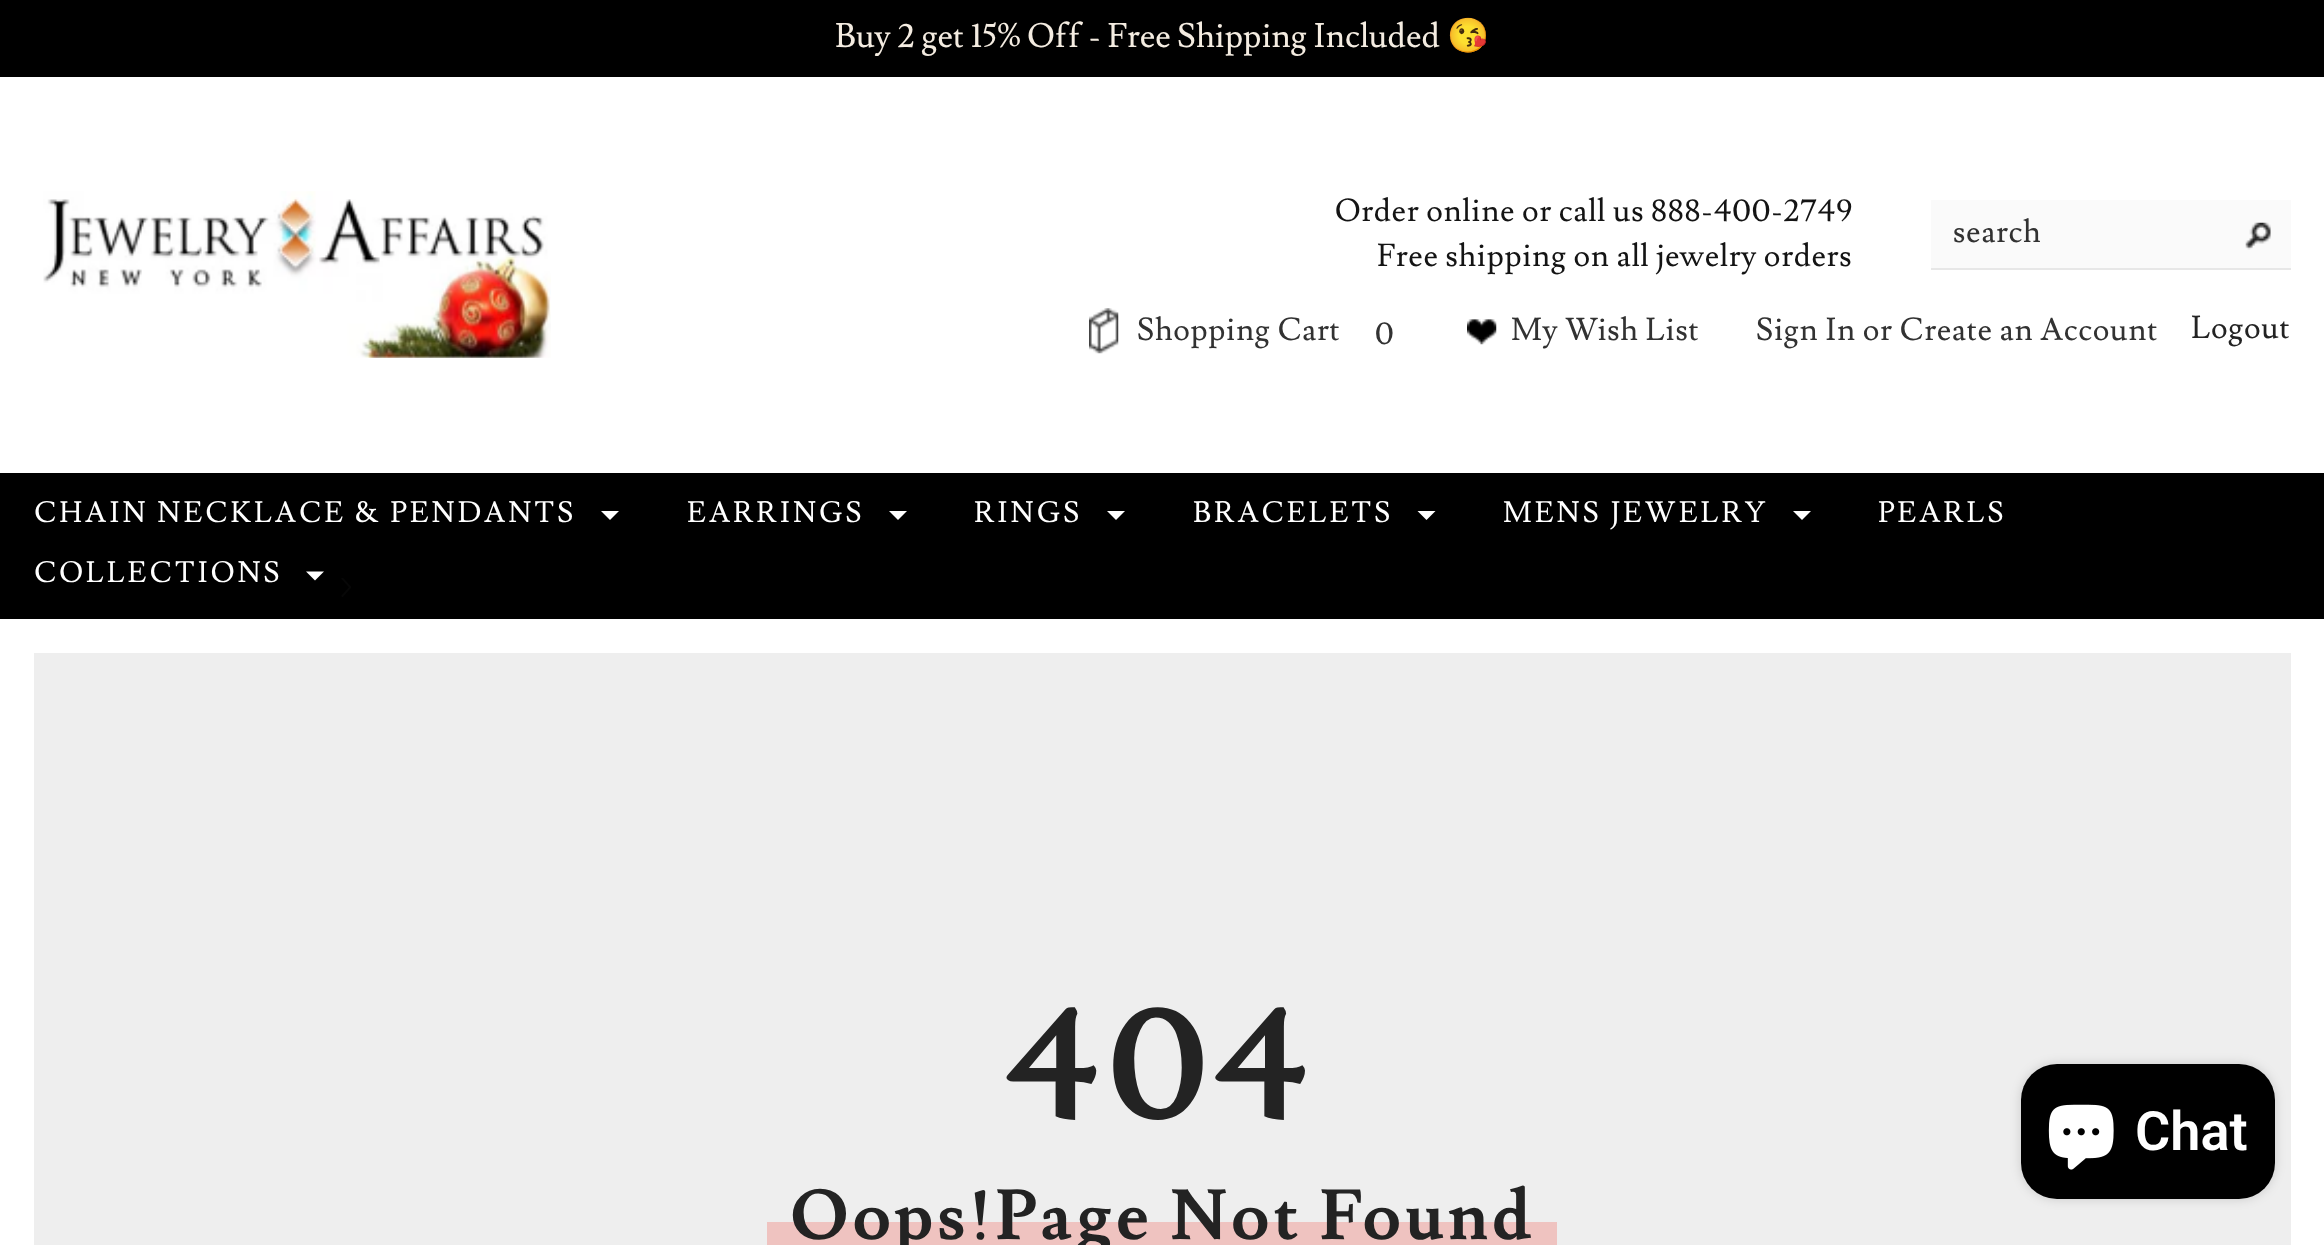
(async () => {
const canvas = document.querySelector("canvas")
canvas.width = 2324
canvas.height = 1245
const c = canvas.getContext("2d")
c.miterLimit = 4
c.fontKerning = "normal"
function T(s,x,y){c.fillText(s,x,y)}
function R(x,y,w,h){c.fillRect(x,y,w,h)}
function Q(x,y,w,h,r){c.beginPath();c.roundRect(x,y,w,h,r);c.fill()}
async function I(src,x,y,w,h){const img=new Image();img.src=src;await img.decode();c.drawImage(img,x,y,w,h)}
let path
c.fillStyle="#fff"
R(0,0,2324,1245)
c.fillStyle="#000"
R(0,0,2324,77)
c.font="33.75px Lusitana"
c.fillStyle="#f4ece1"
T("Buy 2 get 15% Off - Free Shipping Included",835,47)
c.font="33.75px Noto Color Emoji"
T("😘",1447,47)
await I("1.png",43,191,508,167)
c.letterSpacing="0.65px"
c.font="31.5px Lusitana"
c.fillStyle="#141414"
T("Order online or call us 888-400-2749",1335,221)
T("Free shipping on all jewelry orders",1377,266)
c.fillStyle="#fafafa"
R(1931,200,360,68)
c.fillStyle="#e7e7e7"
R(1931,268,360,2)
c.fillStyle="#323232"
T("search",1953,242)
await I("2.png",2245,222,26,28)
await I("3.png",1089,308,30,46)
T("Shopping Cart",1137,340)
c.letterSpacing="0px"
T("0",1375,344)
await I("4.png",1467,319,30,26)
c.letterSpacing="0.65px"
T("My Wish List",1511,340)
T("Sign In or Create an Account",1756,340)
c.fillStyle="#232323"
T("Logout",2191,338)
c.fillStyle="#000"
R(0,473,2324,146)
c.letterSpacing="2.9px"
c.font="29.25px Lusitana"
c.fillStyle="#fff"
T("CHAIN NECKLACE & PENDANTS",34,522)
path = new Path2D("M601 511h18l-9 9z")
c.fill(path)
T("EARRINGS",687,522)
path = new Path2D("M889 511h18l-9 9z")
c.fill(path)
T("RINGS",974,522)
path = new Path2D("M1107 511h18l-9 9z")
c.fill(path)
T("BRACELETS",1193,522)
path = new Path2D("M1417.5 511h18l-9 9z")
c.fill(path)
T("MENS JEWELRY",1503,522)
path = new Path2D("M1793 511h18l-9 9z")
c.fill(path)
T("PEARLS",1878,522)
T("COLLECTIONS",34,582)
path = new Path2D("M306 571.5h18l-9 9z")
c.fill(path)
await I("5.png",341,578,10,19)
c.fillStyle="#eee"
R(34,653,2257,592)
c.letterSpacing="8px"
c.font="bold 160px Lusitana"
c.fillStyle="#232323"
T("404",1006,1118)
c.fillStyle="#efc3c0"
R(767,1222,790,23)
c.letterSpacing="3.5px"
c.font="bold 69.75px Lusitana"
c.fillStyle="#232323"
T("Oops!Page Not Found",790,1239)
c.fillStyle="#00000026"
c.filter="blur(5.5px)"
c.beginPath()
c.roundRect(2021,1064,254,135,36)
c.fill()
c.filter="none"
c.fillStyle="#000"
Q(2021,1064,254,135,36)
await I("6.png",2048,1104,66,66)
c.letterSpacing="0px"
c.font="600 54px Roboto"
c.fillStyle="#fff"
T("Chat",2135,1150)
})()
